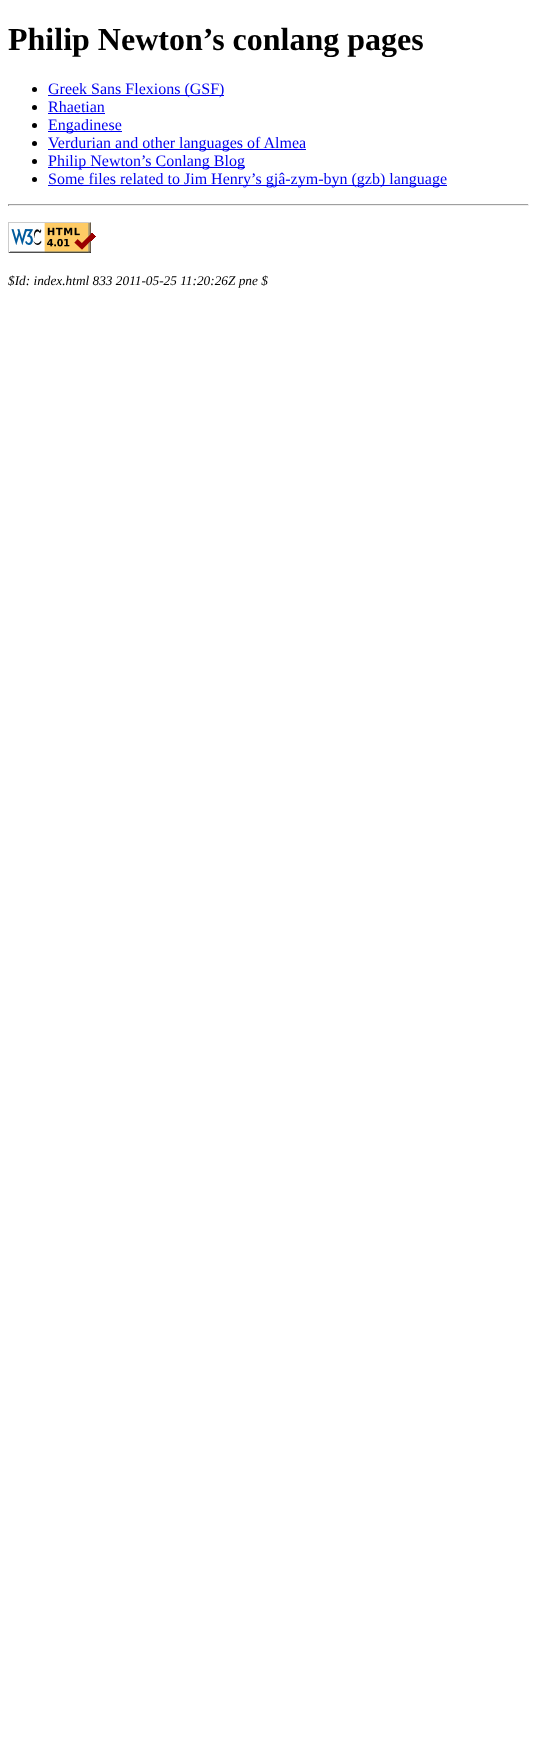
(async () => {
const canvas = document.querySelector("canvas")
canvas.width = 537
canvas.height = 1744
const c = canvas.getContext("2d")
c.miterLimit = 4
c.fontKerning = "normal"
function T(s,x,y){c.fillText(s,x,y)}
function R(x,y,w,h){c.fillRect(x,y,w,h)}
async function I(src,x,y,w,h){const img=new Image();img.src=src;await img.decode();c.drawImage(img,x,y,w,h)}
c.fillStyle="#fff"
R(0,0,537,1744)
c.font="bold 32px Liberation Serif"
c.fillStyle="#000"
T("Philip Newton’s conlang pages",8,50)
c.beginPath()
c.arc(34.5,89.5,2.5,0,7)
c.fill()
c.fillStyle="#00e"
R(48,95,176,1)
c.font="16px Liberation Serif"
T("Greek Sans Flexions (GSF)",48,94)
c.fillStyle="#000"
c.beginPath()
c.arc(34.5,107.5,2.5,0,7)
c.fill()
c.fillStyle="#00e"
T("Rhaetian",48,112)
R(48,113,57,1)
c.fillStyle="#000"
c.beginPath()
c.arc(34.5,125.5,2.5,0,7)
c.fill()
c.fillStyle="#00e"
R(48,131,74,1)
T("Engadinese",48,130)
c.fillStyle="#000"
c.beginPath()
c.arc(34.5,143.5,2.5,0,7)
c.fill()
c.fillStyle="#00e"
R(48,149,258,1)
T("Verdurian and other languages of Almea",48,148)
c.fillStyle="#000"
c.beginPath()
c.arc(34.5,161.5,2.5,0,7)
c.fill()
c.fillStyle="#00e"
R(48,167,197,1)
T("Philip Newton’s Conlang Blog",48,166)
c.fillStyle="#000"
c.beginPath()
c.arc(34.5,179.5,2.5,0,7)
c.fill()
c.fillStyle="#00e"
R(48,185,399,1)
T("Some files related to Jim Henry’s gjâ-zym-byn (gzb) language",48,184)
c.fillStyle="#9f9f9f"
R(8,204,521,1)
c.fillStyle="#eee"
R(528,204,1,2)
R(8,205,521,1)
c.fillStyle="#9f9f9f"
R(8,204,1,2)
await I("1.png",8,222,88,31)
c.font="italic 13.3px Liberation Serif"
c.fillStyle="#000"
T("$Id: index.html 833 2011-05-25 11:20:26Z pne $",8,285)
})()
